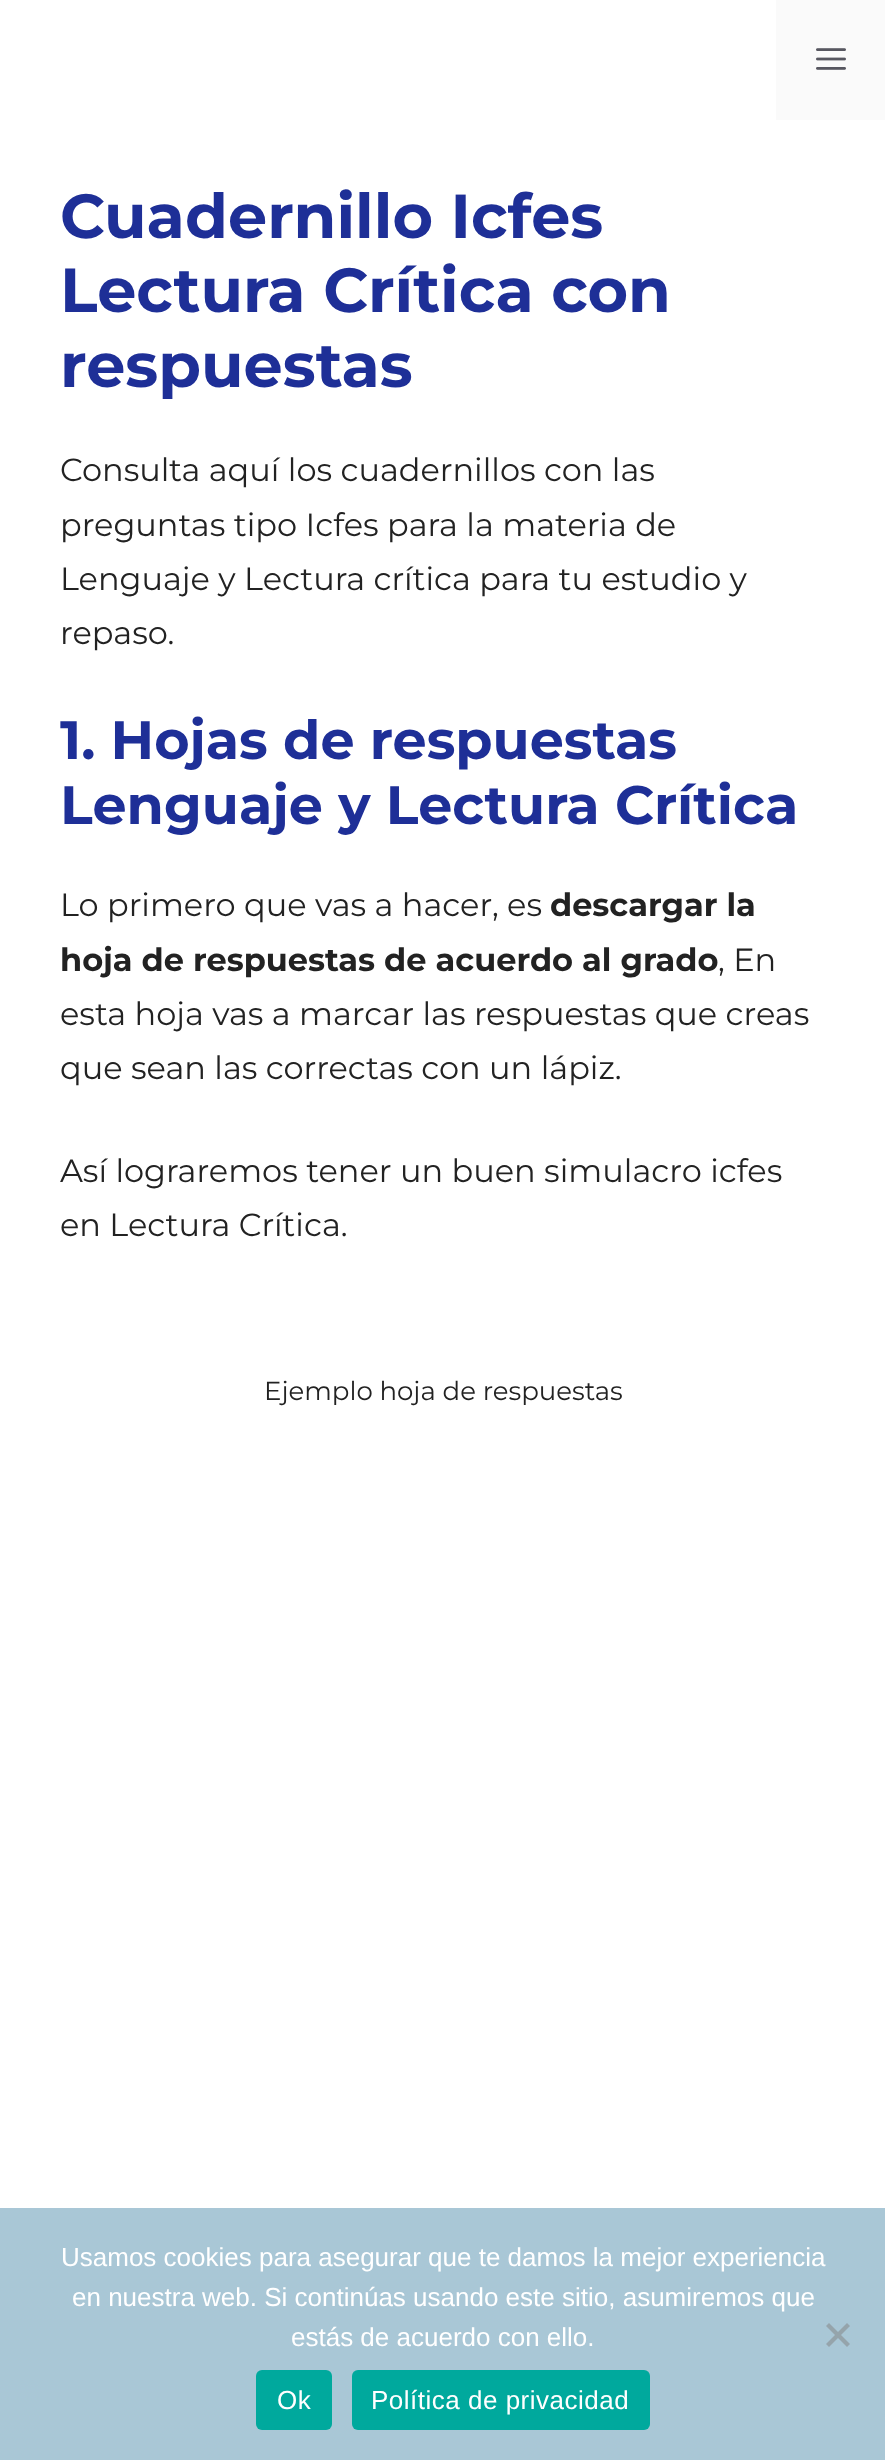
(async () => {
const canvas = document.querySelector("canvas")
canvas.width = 885
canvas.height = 2460
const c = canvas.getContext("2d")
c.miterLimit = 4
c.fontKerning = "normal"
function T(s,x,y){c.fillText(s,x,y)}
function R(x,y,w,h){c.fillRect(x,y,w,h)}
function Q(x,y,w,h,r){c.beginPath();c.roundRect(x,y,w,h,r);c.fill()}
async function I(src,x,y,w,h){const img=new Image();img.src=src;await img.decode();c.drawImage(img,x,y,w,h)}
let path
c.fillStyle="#fff"
R(0,0,885,2460)
c.fillStyle="#fafafa"
R(776,0,109,120)
await I("1.png",816,48,30,22)
c.font="bold 62px Montserrat"
c.fillStyle="#1e2f97"
T("Cuadernillo Icfes",60,238)
T("Lectura Crítica con",60,312)
T("respuestas",60,387)
c.font="32px Montserrat"
c.fillStyle="#222"
T("Consulta aquí los cuadernillos con las",60,481)
T("preguntas tipo Icfes para la materia de",60,536)
T("Lenguaje y Lectura crítica para tu estudio y",60,590)
T("repaso.",60,644)
c.font="bold 54px Montserrat"
c.fillStyle="#1e2f97"
T("1. Hojas de respuestas",60,759)
T("Lenguaje y Lectura Crítica",60,824)
c.font="32px Montserrat"
c.fillStyle="#222"
T("Lo primero que vas a hacer, es",60,916)
c.font="bold 32px Montserrat"
T("descargar la",550,916)
T("hoja de respuestas de acuerdo al grado",60,971)
c.font="32px Montserrat"
T(", En",718,971)
T("esta hoja vas a marcar las respuestas que creas",60,1025)
T("que sean las correctas con un lápiz.",60,1079)
T("Así lograremos tener un buen simulacro icfes",60,1182)
T("en Lectura Crítica.",60,1236)
c.font="26px Montserrat"
T("Ejemplo hoja de respuestas",264,1400)
c.fillStyle="#a9c7d6"
R(0,2208,885,252)
c.font="26px Liberation Sans"
c.fillStyle="#fff"
T("Usamos cookies para asegurar que te damos la mejor experiencia",61,2266)
T("en nuestra web. Si continúas usando este sitio, asumiremos que",72,2306)
T("estás de acuerdo con ello.",291,2346)
c.fillStyle="#95a4ab"
path = new Path2D("M847 2323l3 3l-21 21l-3-3z")
c.fill(path)
path = new Path2D("M826 2326l3-3l21 21l-3 3z")
c.fill(path)
c.fillStyle="#00a99d"
Q(256,2370,76,60,6)
c.letterSpacing="0.5px"
c.fillStyle="#fff"
T("Ok",277,2409)
c.fillStyle="#00a99d"
Q(352,2370,298,60,6)
c.fillStyle="#fff"
T("Política de privacidad",371,2409)
})()
